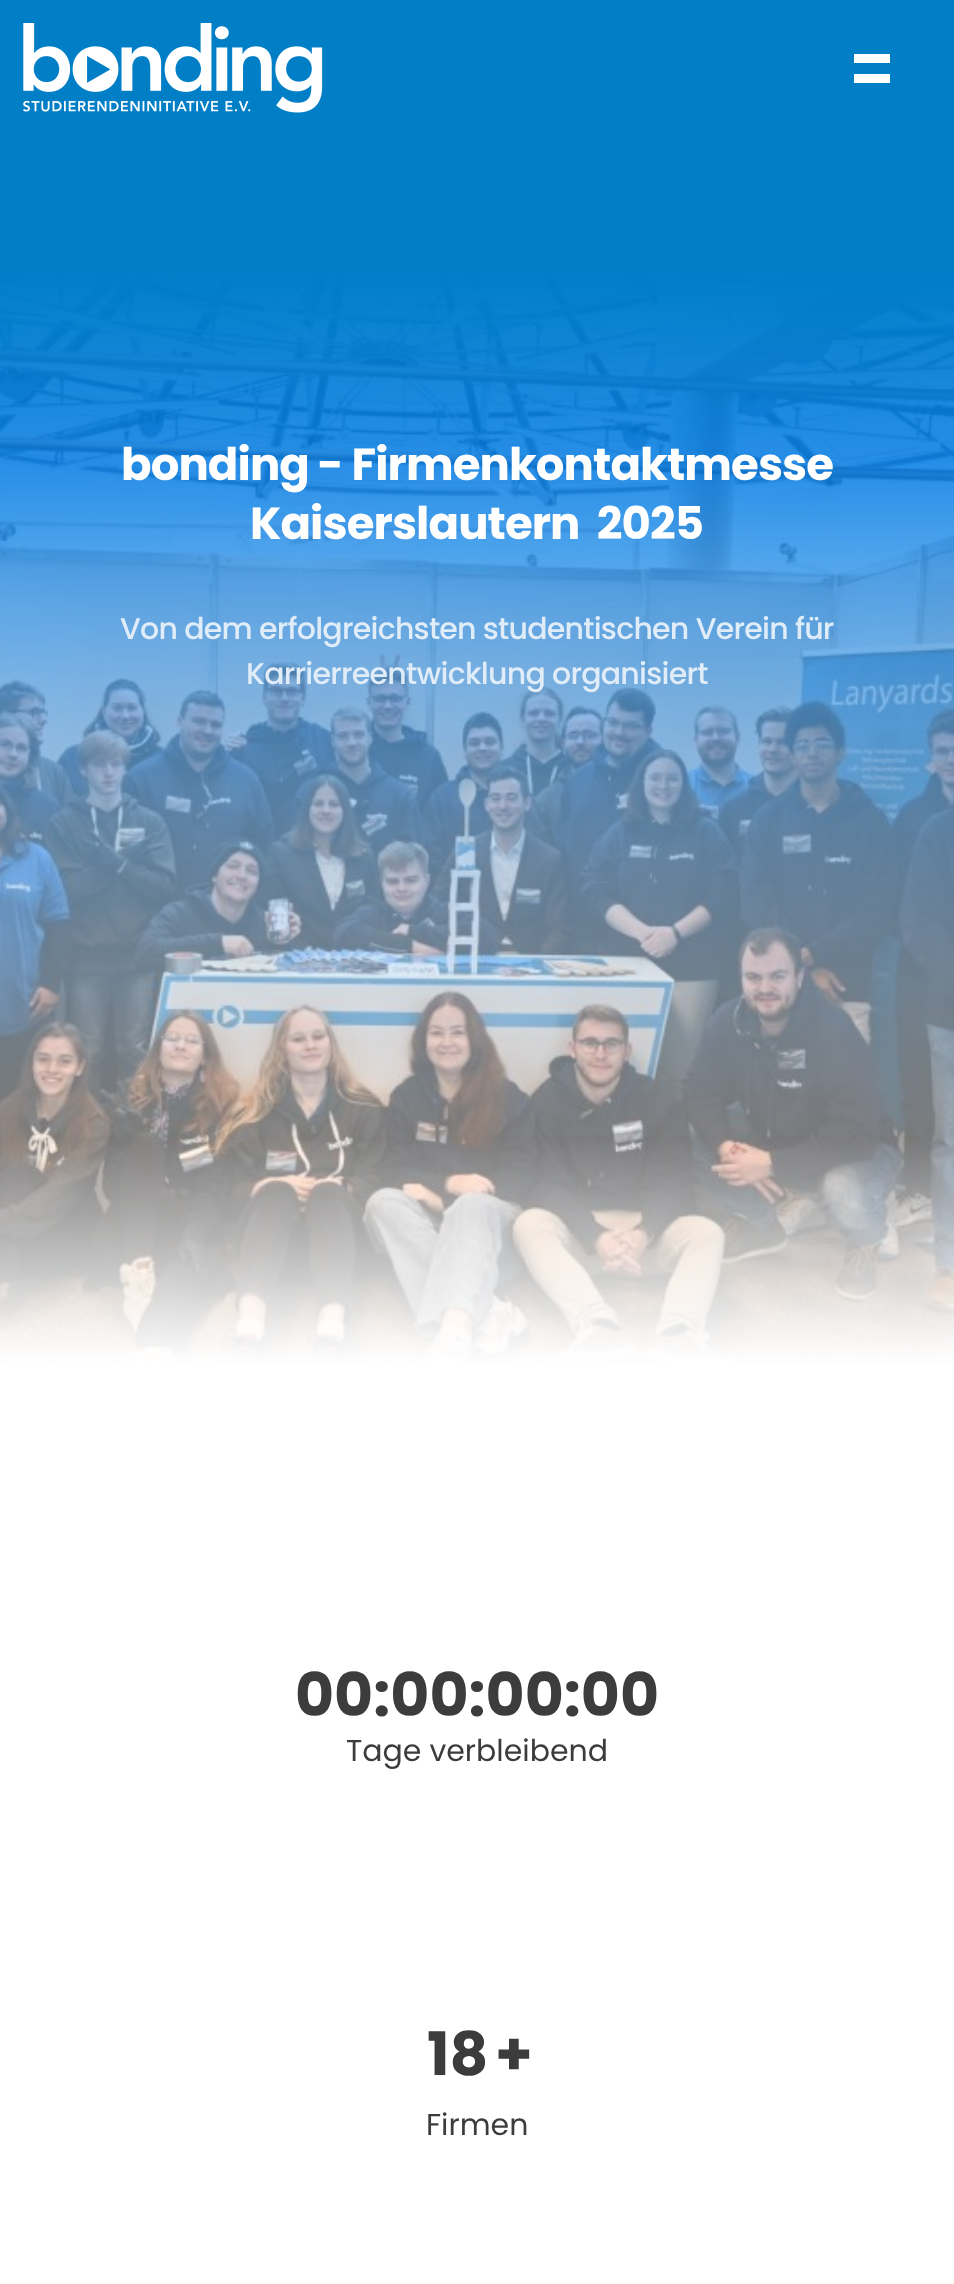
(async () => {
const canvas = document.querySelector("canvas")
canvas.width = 954
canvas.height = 2284
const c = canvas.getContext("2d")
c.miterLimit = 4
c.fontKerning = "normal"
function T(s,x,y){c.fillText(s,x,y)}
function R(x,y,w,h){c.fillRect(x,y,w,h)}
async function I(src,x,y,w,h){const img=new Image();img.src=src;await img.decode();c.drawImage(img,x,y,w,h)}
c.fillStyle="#fff"
R(0,0,954,2284)
c.fillStyle="#007ec6"
R(0,0,954,135)
await I("1.png",23,23,300,90)
c.fillStyle="#fff"
R(854,54,36,9)
R(854,74,36,9)
await I("2.png",0,135,954,1350)
c.letterSpacing="-0.9px"
c.font="bold 45px Poppins"
T("bonding - Firmenkontaktmesse",121,480)
T("Kaiserslautern  2025",250,539)
c.letterSpacing="-0.75px"
c.font="500 30px Poppins"
c.fillStyle="#e0edf9"
T("Von dem erfolgreichsten studentischen Verein für",120,639)
T("Karrierreentwicklung organisiert",246,684)
c.letterSpacing="0px"
c.font="bold 60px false"
c.fillStyle="#3c3c3c"
T("00:00:00:00",295,1716)
c.font="30px false"
T("Tage verbleibend",346,1761)
c.font="bold 60px false"
T("18",427,2075)
T("+",495,2075)
c.font="30px false"
T("Firmen",426,2135)
})()
